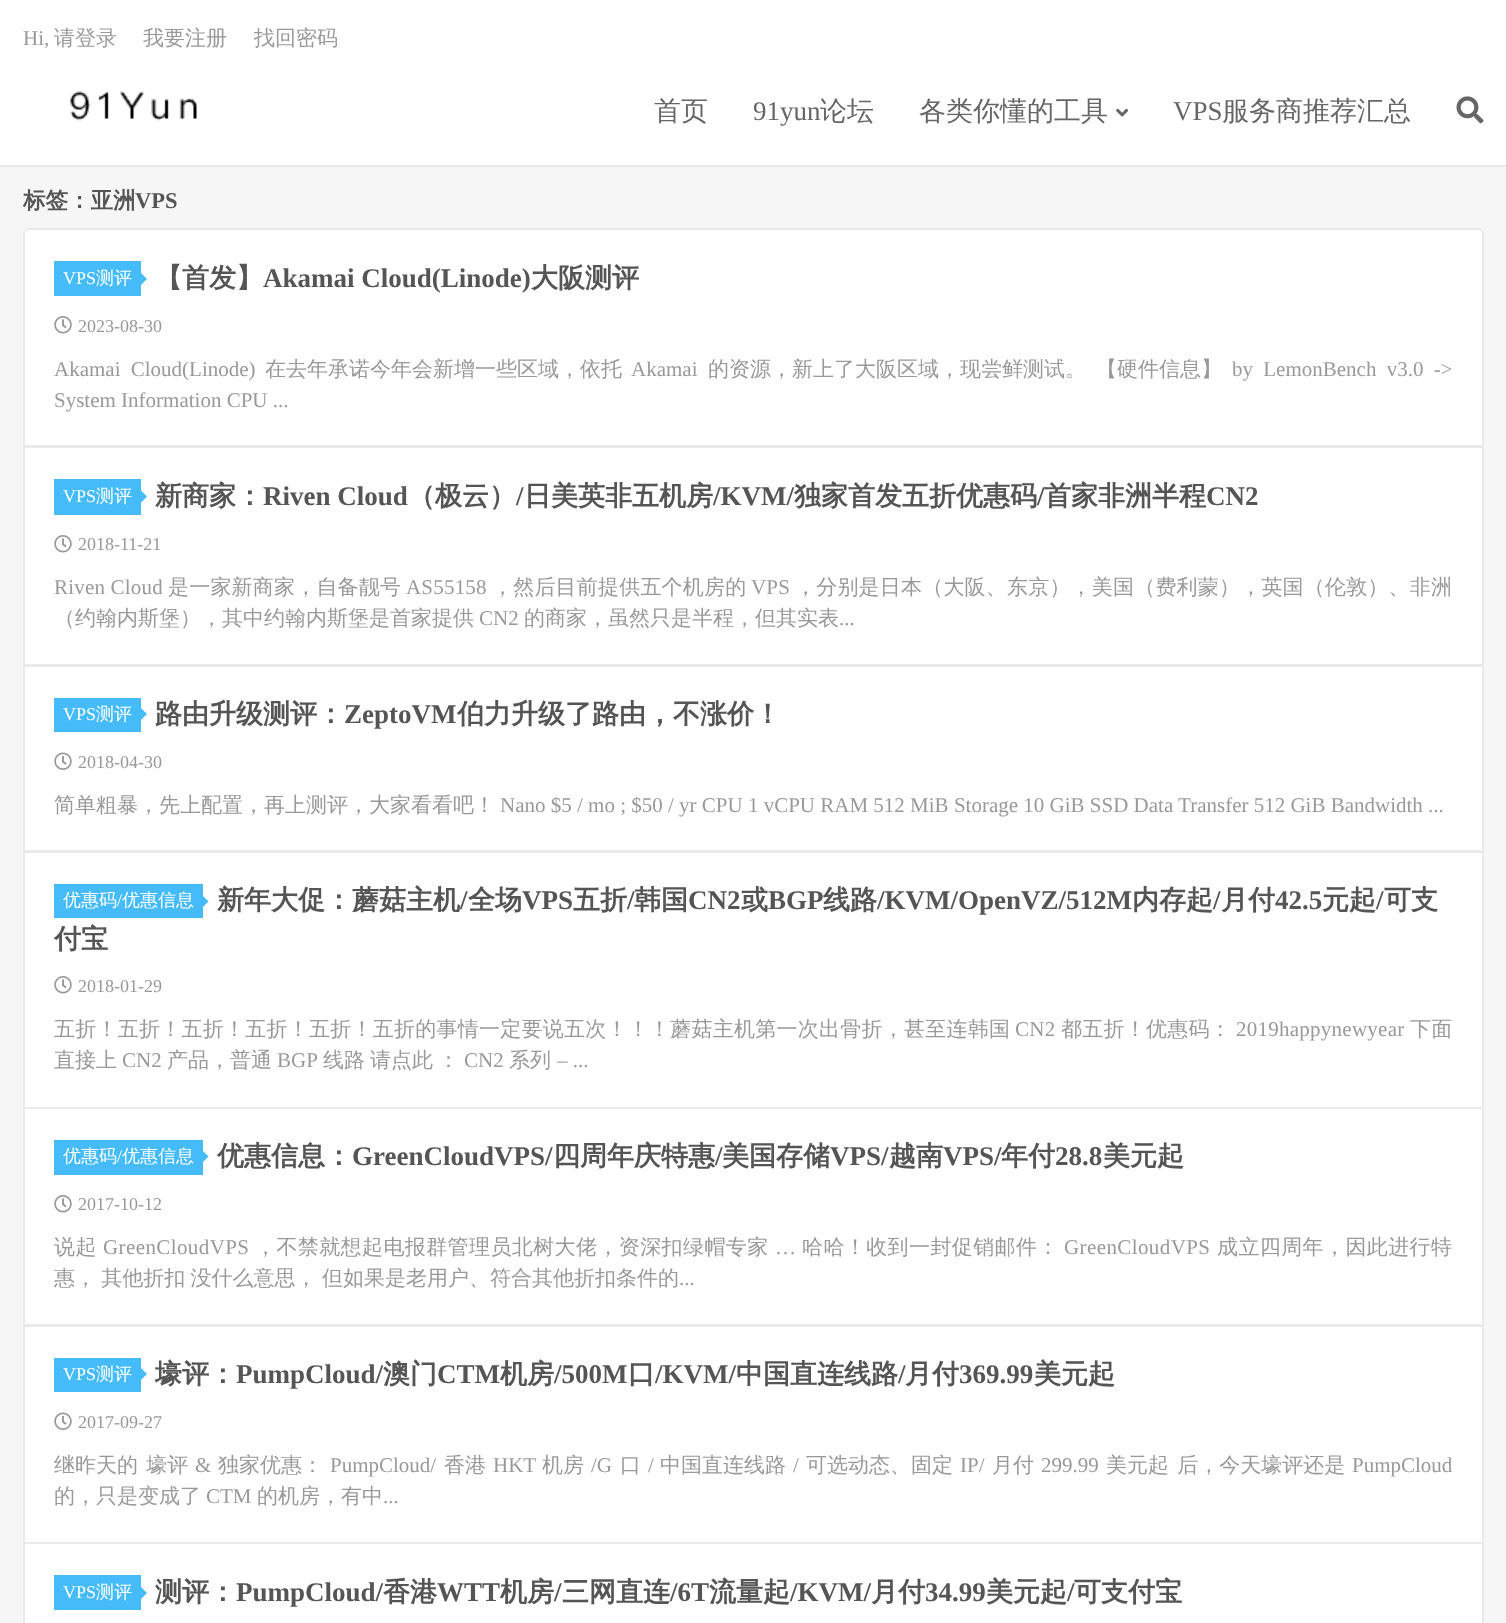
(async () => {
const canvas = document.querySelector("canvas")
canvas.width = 1506
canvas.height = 1623
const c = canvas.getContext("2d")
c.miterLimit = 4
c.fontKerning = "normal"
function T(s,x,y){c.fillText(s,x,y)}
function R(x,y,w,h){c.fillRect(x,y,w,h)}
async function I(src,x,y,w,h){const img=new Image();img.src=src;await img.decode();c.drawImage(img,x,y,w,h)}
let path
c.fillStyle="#f6f6f6"
R(0,0,1506,1623)
c.fillStyle="#fff"
R(0,0,1506,165)
c.fillStyle="#ebebeb"
R(0,165,1506,2)
c.font="21px Liberation Serif"
c.fillStyle="#999"
T("Hi,",23,45)
c.font="500 21px WenQuanYi Zen Hei"
T("请登录",54,45)
T("我要注册",143,45)
T("找回密码",254,45)
await I("1.png",70,91,127,30)
c.font="500 27px WenQuanYi Zen Hei"
c.fillStyle="#666"
T("首页",654,120)
c.font="27px Liberation Serif"
T("91yun",753,120)
c.font="500 27px WenQuanYi Zen Hei"
T("论坛",820,120)
T("各类你懂的工具",919,120)
await I("2.png",1116,108,13,9)
c.font="27px Liberation Serif"
T("VPS",1173,120)
c.font="500 27px WenQuanYi Zen Hei"
T("服务商推荐汇总",1222,120)
await I("3.png",1456,96,28,28)
c.font="bold 22.5px WenQuanYi Zen Hei"
c.fillStyle="#555"
T("标签：亚洲",23,208)
c.font="bold 22.5px Liberation Serif"
T("VPS",135,208)
c.fillStyle="#fff"
c.beginPath()
c.roundRect(24,229,1459,217,[5,5,0,0])
c.fill()
c.strokeStyle="#eaeaea"
c.lineWidth=2
c.stroke()
c.fillStyle="#45bcf9"
R(54,261,87,35)
c.font="18px Liberation Serif"
c.fillStyle="#fff"
T("VPS",63,284)
c.font="500 18px WenQuanYi Zen Hei"
T("测评",96,284)
c.fillStyle="#45bcf9"
path = new Path2D("M141 285v-12l6 6z")
c.fill(path)
c.font="bold 27px WenQuanYi Zen Hei"
c.fillStyle="#555"
T("【首发】",155,287)
c.font="bold 27px Liberation Serif"
T("Akamai Cloud(Linode)",263,287)
c.font="bold 27px WenQuanYi Zen Hei"
T("大阪测评",531,287)
await I("4.png",54,316,18,18)
c.font="18px Liberation Serif"
c.fillStyle="#999"
T("2023-08-30",78,332)
c.wordSpacing="5px"
c.font="21px Liberation Serif"
T("Akamai Cloud(Linode)",54,376)
c.wordSpacing="0px"
c.font="500 21px WenQuanYi Zen Hei"
T("在去年承诺今年会新增一些区域，依托",265,376)
c.font="21px Liberation Serif"
T("Akamai",631,376)
c.font="500 21px WenQuanYi Zen Hei"
T("的资源，新上了大阪区域，现尝鲜测试。",708,376)
T("【硬件信息】",1096,376)
c.wordSpacing="5px"
c.font="21px Liberation Serif"
T("by LemonBench v3.0 ->",1232,376)
c.wordSpacing="0px"
T("System Information CPU ...",54,407)
c.fillStyle="#fff"
c.beginPath()
c.rect(24,447,1459,218)
c.fill()
c.stroke()
c.fillStyle="#45bcf9"
R(54,479,87,36)
c.font="18px Liberation Serif"
c.fillStyle="#fff"
T("VPS",63,502)
c.font="500 18px WenQuanYi Zen Hei"
T("测评",96,502)
c.fillStyle="#45bcf9"
path = new Path2D("M141 502.5v-12l6 6z")
c.fill(path)
c.font="bold 27px WenQuanYi Zen Hei"
c.fillStyle="#555"
T("新商家：",155,505)
c.font="bold 27px Liberation Serif"
T("Riven Cloud",263,505)
c.font="bold 27px WenQuanYi Zen Hei"
T("（极云）",408,505)
c.font="bold 27px Liberation Serif"
T("/",516,505)
c.font="bold 27px WenQuanYi Zen Hei"
T("日美英非五机房",524,505)
c.font="bold 27px Liberation Serif"
T("/KVM/",713,505)
c.font="bold 27px WenQuanYi Zen Hei"
T("独家首发五折优惠码",794,505)
c.font="bold 27px Liberation Serif"
T("/",1037,505)
c.font="bold 27px WenQuanYi Zen Hei"
T("首家非洲半程",1044,505)
c.font="bold 27px Liberation Serif"
T("CN2",1206,505)
await I("4.png",54,535,18,18)
c.font="18px Liberation Serif"
c.fillStyle="#999"
T("2018-11-21",78,550)
c.letterSpacing="0.2px"
c.font="21px Liberation Serif"
T("Riven Cloud",54,594)
c.font="500 21px WenQuanYi Zen Hei"
T("是一家新商家，自备靓号",168,594)
c.font="21px Liberation Serif"
T("AS55158",406,594)
c.font="500 21px WenQuanYi Zen Hei"
T("，然后目前提供五个机房的",492,594)
c.font="21px Liberation Serif"
T("VPS",751,594)
c.font="500 21px WenQuanYi Zen Hei"
T("，分别是日本（大阪、东京），美国（费利蒙），英国（伦敦）、非洲",795,594)
c.letterSpacing="0px"
T("（约翰内斯堡），其中约翰内斯堡是首家提供",54,625)
c.font="21px Liberation Serif"
T("CN2",479,625)
c.font="500 21px WenQuanYi Zen Hei"
T("的商家，虽然只是半程，但其实表",524,625)
c.font="21px Liberation Serif"
T("...",839,625)
c.fillStyle="#fff"
c.beginPath()
c.rect(24,666,1459,185)
c.fill()
c.stroke()
c.fillStyle="#45bcf9"
R(54,698,87,34)
c.font="18px Liberation Serif"
c.fillStyle="#fff"
T("VPS",63,720)
c.font="500 18px WenQuanYi Zen Hei"
T("测评",96,720)
c.fillStyle="#45bcf9"
path = new Path2D("M141 720v-12l6 6z")
c.fill(path)
c.font="bold 27px WenQuanYi Zen Hei"
c.fillStyle="#555"
T("路由升级测评：",155,723)
c.font="bold 27px Liberation Serif"
T("ZeptoVM",344,723)
c.font="bold 27px WenQuanYi Zen Hei"
T("伯力升级了路由，不涨价！",457,723)
await I("5.png",54,752,18,18)
c.font="18px Liberation Serif"
c.fillStyle="#999"
T("2018-04-30",78,768)
c.font="500 21px WenQuanYi Zen Hei"
T("简单粗暴，先上配置，再上测评，大家看看吧！",54,812)
c.font="21px Liberation Serif"
T("Nano $5 / mo ; $50 / yr CPU 1 vCPU RAM 512 MiB Storage 10 GiB SSD Data Transfer 512 GiB Bandwidth ...",500,812)
c.fillStyle="#fff"
c.beginPath()
c.rect(24,852,1459,256)
c.fill()
c.stroke()
c.fillStyle="#45bcf9"
R(54,884,149,34)
c.font="500 18px WenQuanYi Zen Hei"
c.fillStyle="#fff"
T("优惠码",63,906)
c.font="18px Liberation Serif"
T("/",117,906)
c.font="500 18px WenQuanYi Zen Hei"
T("优惠信息",122,906)
c.fillStyle="#45bcf9"
path = new Path2D("M202.5 907.5v-12l6 6z")
c.fill(path)
c.font="bold 27px WenQuanYi Zen Hei"
c.fillStyle="#555"
T("新年大促：蘑菇主机",217,909)
c.font="bold 27px Liberation Serif"
T("/",460,909)
c.font="bold 27px WenQuanYi Zen Hei"
T("全场",468,909)
c.font="bold 27px Liberation Serif"
T("VPS",522,909)
c.font="bold 27px WenQuanYi Zen Hei"
T("五折",573,909)
c.font="bold 27px Liberation Serif"
T("/",627,909)
c.font="bold 27px WenQuanYi Zen Hei"
T("韩国",634,909)
c.font="bold 27px Liberation Serif"
T("CN2",688,909)
c.font="bold 27px WenQuanYi Zen Hei"
T("或",741,909)
c.font="bold 27px Liberation Serif"
T("BGP",768,909)
c.font="bold 27px WenQuanYi Zen Hei"
T("线路",823,909)
c.font="bold 27px Liberation Serif"
T("/KVM/OpenVZ/512M",877,909)
c.font="bold 27px WenQuanYi Zen Hei"
T("内存起",1132,909)
c.font="bold 27px Liberation Serif"
T("/",1213,909)
c.font="bold 27px WenQuanYi Zen Hei"
T("月付",1221,909)
c.font="bold 27px Liberation Serif"
T("42.5",1275,909)
c.font="bold 27px WenQuanYi Zen Hei"
T("元起",1322,909)
c.font="bold 27px Liberation Serif"
T("/",1376,909)
c.font="bold 27px WenQuanYi Zen Hei"
T("可支",1384,909)
T("付宝",54,948)
await I("4.png",54,976,18,18)
c.font="18px Liberation Serif"
c.fillStyle="#999"
T("2018-01-29",78,992)
c.letterSpacing="0.25px"
c.font="500 21px WenQuanYi Zen Hei"
T("五折！五折！五折！五折！五折！五折的事情一定要说五次！！！蘑菇主机第一次出骨折，甚至连韩国",54,1036)
c.font="21px Liberation Serif"
T("CN2",1015,1036)
c.font="500 21px WenQuanYi Zen Hei"
T("都五折！优惠码：",1061,1036)
c.font="21px Liberation Serif"
T("2019happynewyear",1236,1036)
c.font="500 21px WenQuanYi Zen Hei"
T("下面",1410,1036)
c.letterSpacing="0px"
T("直接上",54,1067)
c.font="21px Liberation Serif"
T("CN2",122,1067)
c.font="500 21px WenQuanYi Zen Hei"
T("产品，普通",167,1067)
c.font="21px Liberation Serif"
T("BGP",277,1067)
c.font="500 21px WenQuanYi Zen Hei"
T("线路",323,1067)
T("请点此",370,1067)
T("：",438,1067)
c.font="21px Liberation Serif"
T("CN2",464,1067)
c.font="500 21px WenQuanYi Zen Hei"
T("系列",509,1067)
c.font="21px Liberation Serif"
T("– ...",557,1067)
c.fillStyle="#fff"
c.beginPath()
c.rect(24,1108,1459,217)
c.fill()
c.stroke()
c.fillStyle="#45bcf9"
R(54,1140,149,35)
c.font="500 18px WenQuanYi Zen Hei"
c.fillStyle="#fff"
T("优惠码",63,1162)
c.font="18px Liberation Serif"
T("/",117,1162)
c.font="500 18px WenQuanYi Zen Hei"
T("优惠信息",122,1162)
c.fillStyle="#45bcf9"
path = new Path2D("M202.5 1162.5v-12l6 6z")
c.fill(path)
c.font="bold 27px WenQuanYi Zen Hei"
c.fillStyle="#555"
T("优惠信息：",217,1165)
c.font="bold 27px Liberation Serif"
T("GreenCloudVPS/",352,1165)
c.font="bold 27px WenQuanYi Zen Hei"
T("四周年庆特惠",553,1165)
c.font="bold 27px Liberation Serif"
T("/",715,1165)
c.font="bold 27px WenQuanYi Zen Hei"
T("美国存储",722,1165)
c.font="bold 27px Liberation Serif"
T("VPS/",830,1165)
c.font="bold 27px WenQuanYi Zen Hei"
T("越南",889,1165)
c.font="bold 27px Liberation Serif"
T("VPS/",943,1165)
c.font="bold 27px WenQuanYi Zen Hei"
T("年付",1001,1165)
c.font="bold 27px Liberation Serif"
T("28.8",1055,1165)
c.font="bold 27px WenQuanYi Zen Hei"
T("美元起",1103,1165)
await I("4.png",54,1195,18,18)
c.font="18px Liberation Serif"
c.fillStyle="#999"
T("2017-10-12",78,1210)
c.letterSpacing="0.4px"
c.font="500 21px WenQuanYi Zen Hei"
T("说起",54,1254)
c.font="21px Liberation Serif"
T("GreenCloudVPS",103,1254)
c.font="500 21px WenQuanYi Zen Hei"
T("，不禁就想起电报群管理员北树大佬，资深扣绿帽专家",255,1254)
c.font="21px Liberation Serif"
T("…",775,1254)
c.font="500 21px WenQuanYi Zen Hei"
T("哈哈！收到一封促销邮件：",802,1254)
c.font="21px Liberation Serif"
T("GreenCloudVPS",1064,1254)
c.font="500 21px WenQuanYi Zen Hei"
T("成立四周年，因此进行特",1217,1254)
c.letterSpacing="0px"
c.wordSpacing="-1px"
T("惠， 其他折扣 没什么意思， 但如果是老用户、符合其他折扣条件的",54,1285)
c.wordSpacing="0px"
c.font="21px Liberation Serif"
T("...",679,1285)
c.fillStyle="#fff"
c.beginPath()
c.rect(24,1326,1459,217)
c.fill()
c.stroke()
c.fillStyle="#45bcf9"
R(54,1358,87,34)
c.font="18px Liberation Serif"
c.fillStyle="#fff"
T("VPS",63,1380)
c.font="500 18px WenQuanYi Zen Hei"
T("测评",96,1380)
c.fillStyle="#45bcf9"
path = new Path2D("M141 1380v-12l6 6z")
c.fill(path)
c.font="bold 27px WenQuanYi Zen Hei"
c.fillStyle="#555"
T("壕评：",155,1383)
c.font="bold 27px Liberation Serif"
T("PumpCloud/",236,1383)
c.font="bold 27px WenQuanYi Zen Hei"
T("澳门",383,1383)
c.font="bold 27px Liberation Serif"
T("CTM",437,1383)
c.font="bold 27px WenQuanYi Zen Hei"
T("机房",500,1383)
c.font="bold 27px Liberation Serif"
T("/500M",554,1383)
c.font="bold 27px WenQuanYi Zen Hei"
T("口",628,1383)
c.font="bold 27px Liberation Serif"
T("/KVM/",655,1383)
c.font="bold 27px WenQuanYi Zen Hei"
T("中国直连线路",736,1383)
c.font="bold 27px Liberation Serif"
T("/",898,1383)
c.font="bold 27px WenQuanYi Zen Hei"
T("月付",905,1383)
c.font="bold 27px Liberation Serif"
T("369.99",959,1383)
c.font="bold 27px WenQuanYi Zen Hei"
T("美元起",1034,1383)
await I("5.png",54,1412,18,18)
c.font="18px Liberation Serif"
c.fillStyle="#999"
T("2017-09-27",78,1428)
c.wordSpacing="2px"
c.font="500 21px WenQuanYi Zen Hei"
T("继昨天的 壕评",54,1472)
c.wordSpacing="0px"
c.font="21px Liberation Serif"
T("&",195,1472)
c.font="500 21px WenQuanYi Zen Hei"
T("独家优惠：",218,1472)
c.font="21px Liberation Serif"
T("PumpCloud/",330,1472)
c.font="500 21px WenQuanYi Zen Hei"
T("香港",444,1472)
c.font="21px Liberation Serif"
T("HKT",493,1472)
c.font="500 21px WenQuanYi Zen Hei"
T("机房",542,1472)
c.font="21px Liberation Serif"
T("/G",591,1472)
c.font="500 21px WenQuanYi Zen Hei"
T("口",620,1472)
c.font="21px Liberation Serif"
T("/",648,1472)
c.font="500 21px WenQuanYi Zen Hei"
T("中国直连线路",660,1472)
c.font="21px Liberation Serif"
T("/",793,1472)
c.font="500 21px WenQuanYi Zen Hei"
T("可选动态、固定",806,1472)
c.font="21px Liberation Serif"
T("IP/",960,1472)
c.font="500 21px WenQuanYi Zen Hei"
T("月付",992,1472)
c.font="21px Liberation Serif"
T("299.99",1041,1472)
c.wordSpacing="2px"
c.font="500 21px WenQuanYi Zen Hei"
T("美元起 后，今天壕评还是",1106,1472)
c.wordSpacing="0px"
c.font="21px Liberation Serif"
T("PumpCloud",1352,1472)
c.font="500 21px WenQuanYi Zen Hei"
T("的，只是变成了",54,1503)
c.font="21px Liberation Serif"
T("CTM",206,1503)
c.font="500 21px WenQuanYi Zen Hei"
T("的机房，有中",257,1503)
c.font="21px Liberation Serif"
T("...",383,1503)
c.fillStyle="#fff"
c.beginPath()
c.rect(24,1543,1459,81)
c.fill()
c.stroke()
c.fillStyle="#45bcf9"
R(54,1575,87,35)
c.font="18px Liberation Serif"
c.fillStyle="#fff"
T("VPS",63,1598)
c.font="500 18px WenQuanYi Zen Hei"
T("测评",96,1598)
c.fillStyle="#45bcf9"
path = new Path2D("M141 1599v-12l6 6z")
c.fill(path)
c.font="bold 27px WenQuanYi Zen Hei"
c.fillStyle="#555"
T("测评：",155,1601)
c.font="bold 27px Liberation Serif"
T("PumpCloud/",236,1601)
c.font="bold 27px WenQuanYi Zen Hei"
T("香港",383,1601)
c.font="bold 27px Liberation Serif"
T("WTT",437,1601)
c.font="bold 27px WenQuanYi Zen Hei"
T("机房",500,1601)
c.font="bold 27px Liberation Serif"
T("/",554,1601)
c.font="bold 27px WenQuanYi Zen Hei"
T("三网直连",562,1601)
c.font="bold 27px Liberation Serif"
T("/6T",670,1601)
c.font="bold 27px WenQuanYi Zen Hei"
T("流量起",709,1601)
c.font="bold 27px Liberation Serif"
T("/KVM/",790,1601)
c.font="bold 27px WenQuanYi Zen Hei"
T("月付",871,1601)
c.font="bold 27px Liberation Serif"
T("34.99",925,1601)
c.font="bold 27px WenQuanYi Zen Hei"
T("美元起",986,1601)
c.font="bold 27px Liberation Serif"
T("/",1067,1601)
c.font="bold 27px WenQuanYi Zen Hei"
T("可支付宝",1074,1601)
})()
